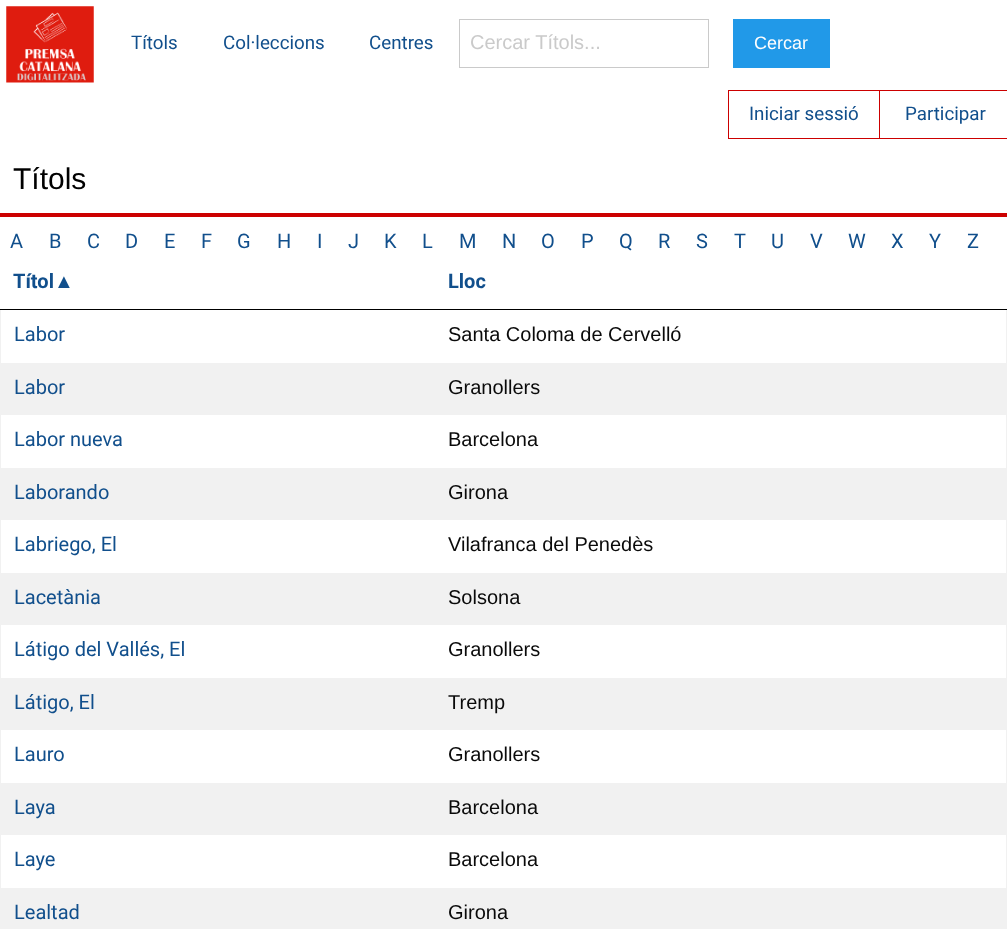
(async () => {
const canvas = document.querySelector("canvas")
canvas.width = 1007
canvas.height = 929
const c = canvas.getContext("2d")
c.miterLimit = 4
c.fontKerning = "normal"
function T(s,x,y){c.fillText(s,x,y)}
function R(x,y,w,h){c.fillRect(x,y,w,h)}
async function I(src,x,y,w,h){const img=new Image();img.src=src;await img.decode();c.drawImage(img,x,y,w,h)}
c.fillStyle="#fff"
R(0,0,1007,929)
await I("1.png",6,6,88,77)
c.font="18.75px Roboto"
c.fillStyle="#114f8c"
T("Títols",131,49)
T("Col·leccions",223,49)
T("Centres",369,49)
c.strokeStyle="#cacaca"
c.strokeRect(459.5,19.5,249,48)
c.font="20px Liberation Sans"
c.fillStyle="#cacaca"
T("Cercar Títols...",470,49)
c.fillStyle="#2199e8"
R(733,19,97,49)
c.font="18px Liberation Sans"
c.fillStyle="#fefefe"
T("Cercar",754,49)
c.strokeStyle="#c00"
c.strokeRect(728.5,90.5,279,48)
c.fillStyle="#c00"
R(879,91,1,47)
c.font="18.75px Roboto"
c.fillStyle="#114f8c"
T("Iniciar sessió",749,120)
T("Participar",905,120)
c.fillStyle="#c00"
R(0,213,1007,4)
c.font="30px Liberation Sans"
c.fillStyle="#000"
T("Títols",13,189)
c.font="20px Roboto"
c.fillStyle="#114f8c"
T("A",10,248)
T("B",49,248)
T("C",87,248)
T("D",125,248)
T("E",164,248)
T("F",201,248)
T("G",237,248)
T("H",277,248)
T("I",317,248)
T("J",348,248)
T("K",384,248)
T("L",422,248)
T("M",459,248)
T("N",502,248)
T("O",541,248)
T("P",581,248)
T("Q",619,248)
T("R",658,248)
T("S",696,248)
T("T",734,248)
T("U",771,248)
T("V",810,248)
T("W",848,248)
T("X",891,248)
T("Y",929,248)
T("Z",967,248)
c.fillStyle="#f1f1f1"
R(1006,309,1,620)
R(0,309,1,620)
c.fillStyle="#000"
R(0,309,1007,1)
c.font="bold 20px Roboto"
c.fillStyle="#114f8c"
T("Títol",13,288)
c.font="bold 20px Liberation Sans"
T("▲",54,288)
c.font="bold 20px Roboto"
T("Lloc",448,288)
c.font="20px Roboto"
T("Labor",14,341)
c.font="20px Liberation Sans"
c.fillStyle="#0a0a0a"
T("Santa Coloma de Cervelló",448,341)
c.fillStyle="#f1f1f1"
R(1,363,1005,52)
c.font="20px Roboto"
c.fillStyle="#114f8c"
T("Labor",14,394)
c.font="20px Liberation Sans"
c.fillStyle="#0a0a0a"
T("Granollers",448,394)
c.font="20px Roboto"
c.fillStyle="#114f8c"
T("Labor nueva",14,446)
c.font="20px Liberation Sans"
c.fillStyle="#0a0a0a"
T("Barcelona",448,446)
c.fillStyle="#f1f1f1"
R(1,468,1005,52)
c.font="20px Roboto"
c.fillStyle="#114f8c"
T("Laborando",14,499)
c.font="20px Liberation Sans"
c.fillStyle="#0a0a0a"
T("Girona",448,499)
c.font="20px Roboto"
c.fillStyle="#114f8c"
T("Labriego, El",14,551)
c.font="20px Liberation Sans"
c.fillStyle="#0a0a0a"
T("Vilafranca del Penedès",448,551)
c.fillStyle="#f1f1f1"
R(1,573,1005,52)
c.font="20px Roboto"
c.fillStyle="#114f8c"
T("Lacetània",14,604)
c.font="20px Liberation Sans"
c.fillStyle="#0a0a0a"
T("Solsona",448,604)
c.font="20px Roboto"
c.fillStyle="#114f8c"
T("Látigo del Vallés, El",14,656)
c.font="20px Liberation Sans"
c.fillStyle="#0a0a0a"
T("Granollers",448,656)
c.fillStyle="#f1f1f1"
R(1,678,1005,52)
c.font="20px Roboto"
c.fillStyle="#114f8c"
T("Látigo, El",14,709)
c.font="20px Liberation Sans"
c.fillStyle="#0a0a0a"
T("Tremp",448,709)
c.font="20px Roboto"
c.fillStyle="#114f8c"
T("Lauro",14,761)
c.font="20px Liberation Sans"
c.fillStyle="#0a0a0a"
T("Granollers",448,761)
c.fillStyle="#f1f1f1"
R(1,783,1005,52)
c.font="20px Roboto"
c.fillStyle="#114f8c"
T("Laya",14,814)
c.font="20px Liberation Sans"
c.fillStyle="#0a0a0a"
T("Barcelona",448,814)
c.font="20px Roboto"
c.fillStyle="#114f8c"
T("Laye",14,866)
c.font="20px Liberation Sans"
c.fillStyle="#0a0a0a"
T("Barcelona",448,866)
c.fillStyle="#f1f1f1"
R(1,888,1005,41)
c.font="20px Roboto"
c.fillStyle="#114f8c"
T("Lealtad",14,919)
c.font="20px Liberation Sans"
c.fillStyle="#0a0a0a"
T("Girona",448,919)
})()
